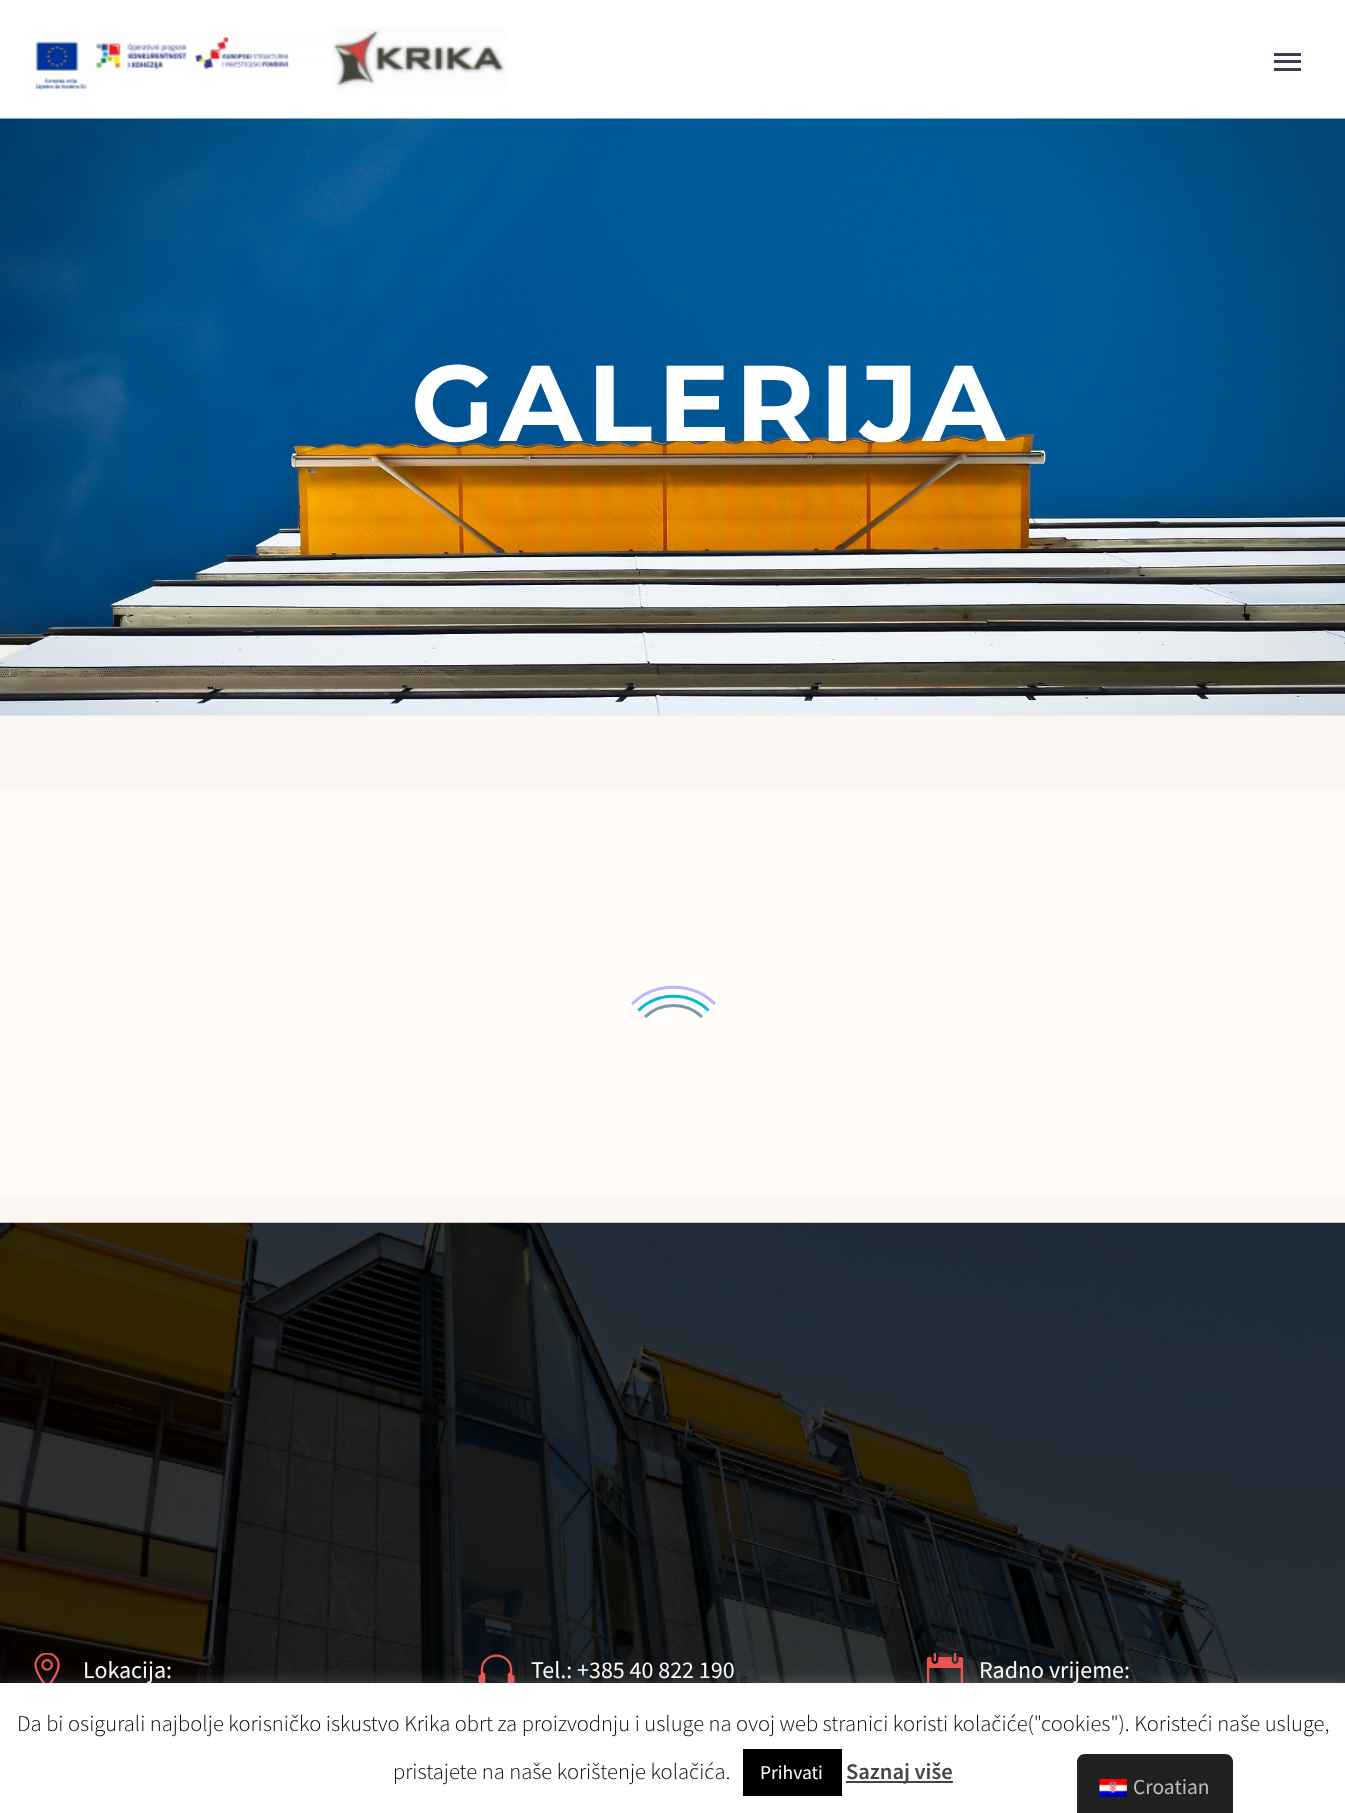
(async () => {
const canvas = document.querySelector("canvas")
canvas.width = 1345
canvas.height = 1813
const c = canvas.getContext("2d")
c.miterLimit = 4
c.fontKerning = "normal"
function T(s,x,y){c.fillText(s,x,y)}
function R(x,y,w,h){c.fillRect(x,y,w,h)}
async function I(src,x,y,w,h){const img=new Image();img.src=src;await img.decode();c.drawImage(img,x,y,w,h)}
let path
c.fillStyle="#fff"
R(0,0,1345,1813)
await I("1.png",35,27,471,64)
c.fillStyle="#3c3950"
R(1274,53,27,3)
R(1274,60,27,3)
R(1274,68,27,3)
c.fillStyle="#fcf6f2"
R(0,715,1345,508)
await I("2.png",0,118,1345,598)
c.letterSpacing="5.5px"
c.font="bold 107.5px Montserrat"
c.fillStyle="#fff"
T("GALERIJA",411,441)
c.fillStyle="#fffcf9"
R(0,791,1345,405)
path = new Path2D("M632 1004c22.5-22.5 60.5-22.5 83 0")
c.strokeStyle="#b9b7ff"
c.lineWidth=3
c.stroke(path)
path = new Path2D("M638.5 1010.5c19-19 51-19 70 0")
c.strokeStyle="#00bcd4"
c.stroke(path)
path = new Path2D("M645 1017c15.5-15.5 41.5-15.5 57 0")
c.strokeStyle="#7b97ab"
c.stroke(path)
await I("3.png",0,1222,1345,461)
await I("4.png",34,1653,14,30)
await I("5.png",48,1653,12,30)
c.letterSpacing="0px"
c.font="24px Source Sans Pro"
c.fillStyle="#fff"
T("Lokacija:",83,1678)
await I("6.png",478,1654,19,29)
await I("7.png",497,1654,18,29)
T("Tel.: +385 40 822 190",531,1678)
await I("8.png",927,1653,18,30)
await I("9.png",945,1653,18,30)
T("Radno vrijeme:",979,1678)
c.fillStyle="#acabab4d"
c.filter="blur(7.5px)"
c.beginPath()
c.rect(0,1682,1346,130)
c.fill()
c.filter="none"
c.fillStyle="#fff"
R(0,1683,1345,130)
c.font="300 22.5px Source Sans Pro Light"
c.fillStyle="#000"
T("Da bi osigurali najbolje korisničko iskustvo Krika obrt za proizvodnju i usluge na ovoj web stranici koristi kolačiće(\"cookies\"). Koristeći naše usluge,",17,1731)
T("pristajete na naše korištenje kolačića.",393,1779)
R(743,1749,99,47)
c.font="19.5px Source Sans Pro"
c.fillStyle="#fff"
T("Prihvati",760,1779)
c.fillStyle="#444"
R(846,1781,107,2)
c.font="600 22.5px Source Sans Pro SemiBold"
T("Saznaj više",846,1779)
c.fillStyle="#212121"
path = new Path2D("M1085 1754h140c4.5 0 8 3.5 8 8v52h-156v-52c0-4.5 3.5-8 8-8z")
c.fill(path)
await I("10.png",1099,1779,28,18)
c.font="21.5px Source Sans Pro"
c.fillStyle="#bdbdbd"
T("Croatian",1133,1794)
})()
